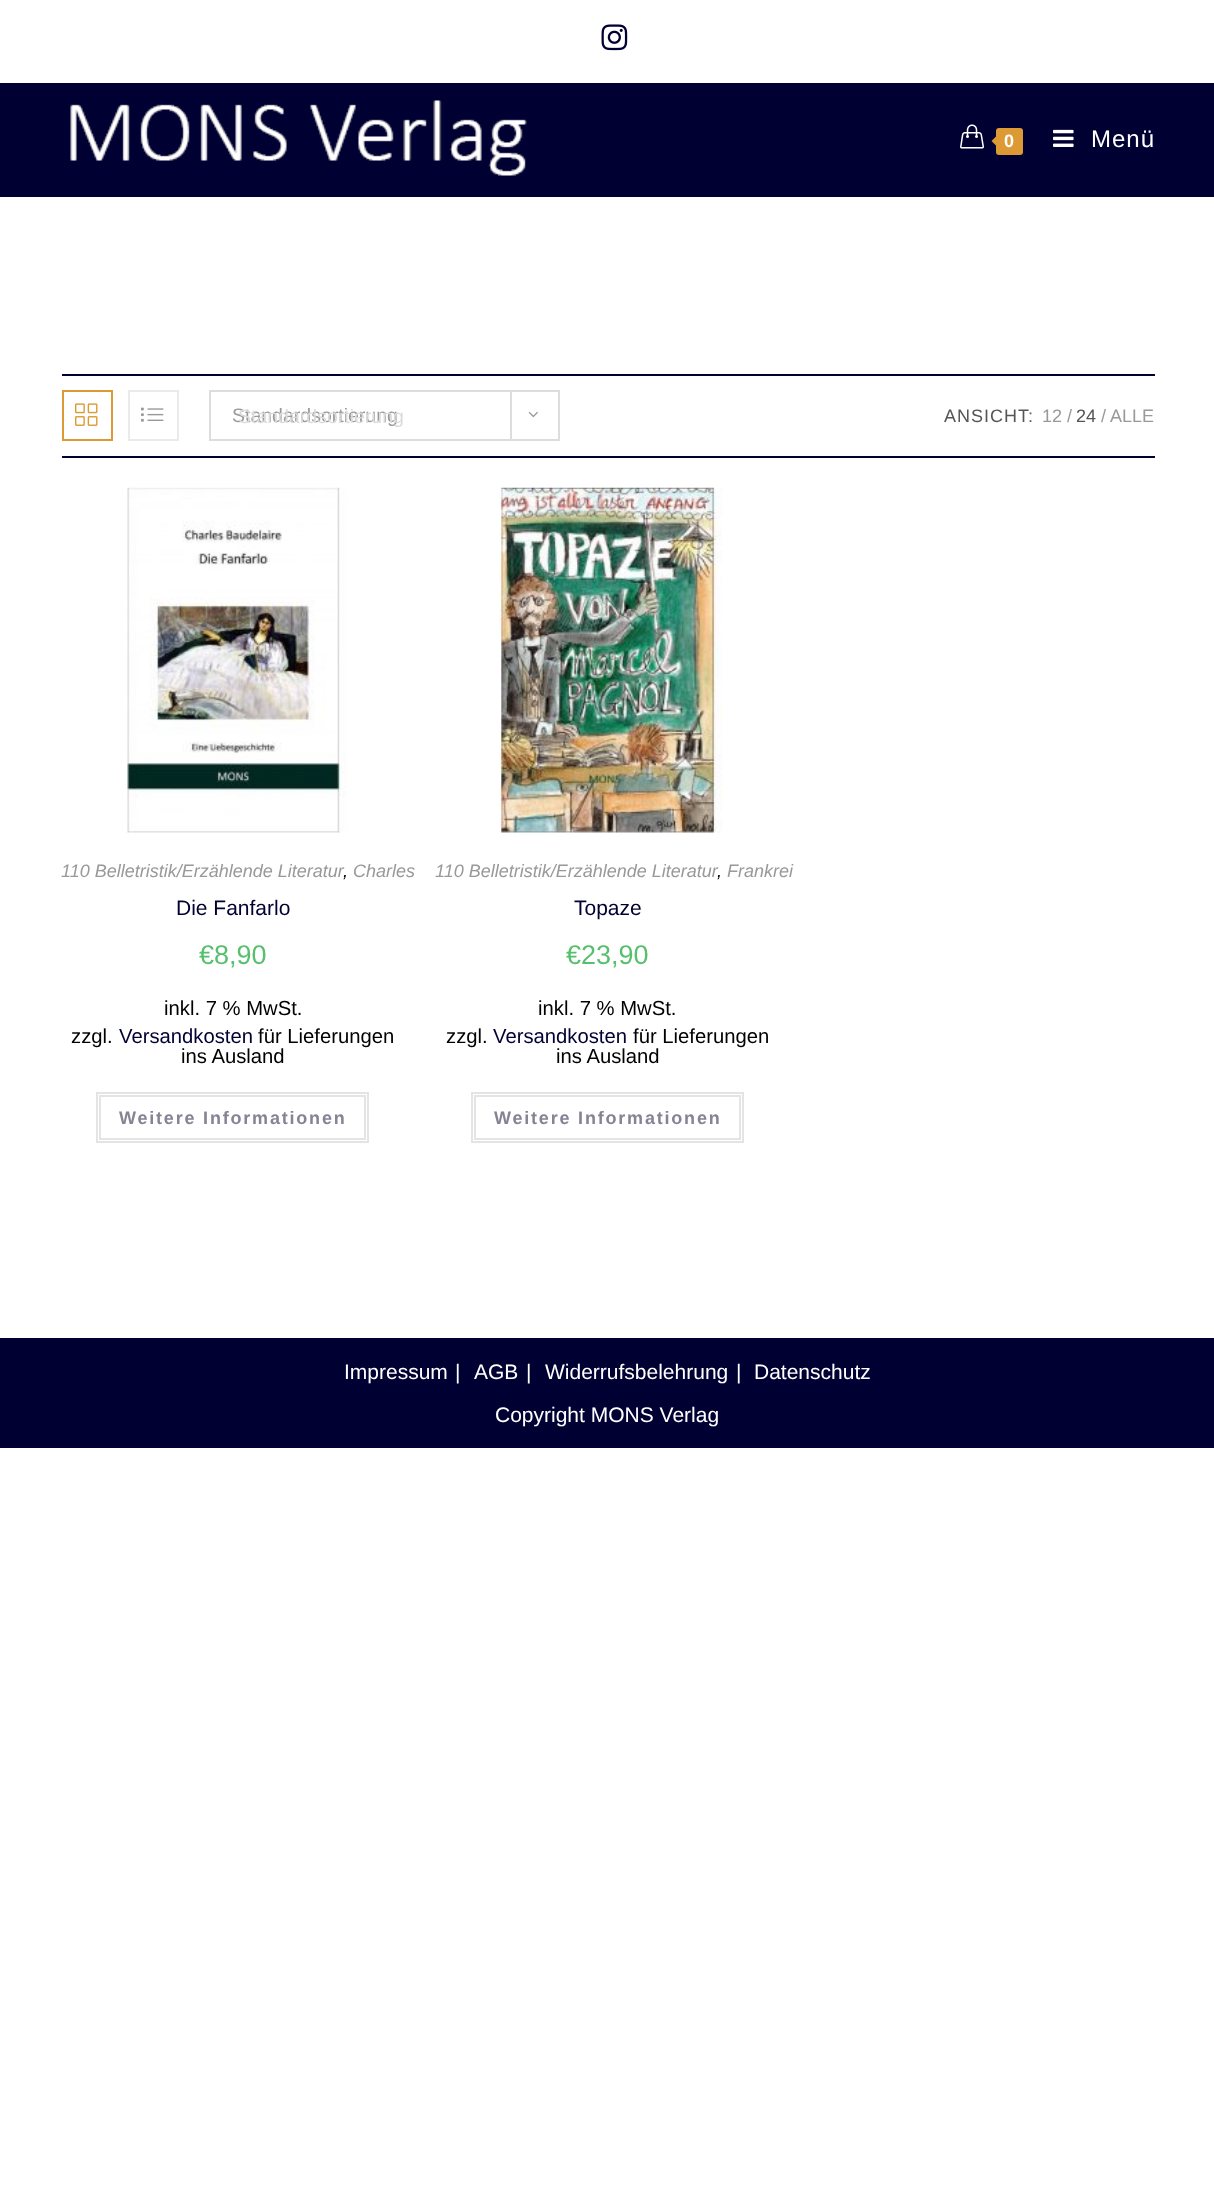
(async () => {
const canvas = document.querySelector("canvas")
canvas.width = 1214
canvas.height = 2185
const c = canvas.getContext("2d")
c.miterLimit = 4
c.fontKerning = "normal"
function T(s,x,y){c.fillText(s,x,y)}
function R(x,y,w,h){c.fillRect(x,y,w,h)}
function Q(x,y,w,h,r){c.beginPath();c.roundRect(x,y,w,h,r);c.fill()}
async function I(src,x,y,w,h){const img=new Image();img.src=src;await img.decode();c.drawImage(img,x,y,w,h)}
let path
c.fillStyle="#fff"
R(0,0,1214,2185)
await I("1.png",601,24,27,27)
c.fillStyle="#003"
R(0,83,1214,114)
await I("2.png",70,100,457,76)
await I("3.png",960,124,24,25)
c.fillStyle="#d93"
Q(996,128,27,27,3)
path = new Path2D("M999 133.5v15l-7.5-7.5z")
c.fill(path)
c.letterSpacing="1px"
c.font="bold 18px Liberation Sans"
c.fillStyle="#fff"
T("0",1004,147)
await I("4.png",1053,129,21,18)
c.font="24px Liberation Sans"
T("Menü",1091,147)
c.fillStyle="#003"
R(62,374,1093,2)
R(62,456,1093,2)
c.strokeStyle="#d93"
c.lineWidth=2
c.strokeRect(63,391,49,49)
await I("5.png",75,403,23,23)
c.strokeStyle="#eaeaea"
c.strokeRect(129,391,49,49)
await I("6.png",141,407,23,15)
c.strokeStyle="#ddd"
c.strokeRect(210,391,349,49)
c.letterSpacing="0px"
c.font="19.5px Liberation Sans"
c.fillStyle="#999"
T("Standardsortierung",232,422)
c.fillStyle="#ddd"
R(510,392,2,48)
await I("7.png",528,411,10,7)
c.fillStyle="#dbdbdb"
T("Standardsortierung",238,423)
c.letterSpacing="1px"
c.font="18px Liberation Sans"
c.fillStyle="#555"
T("ANSICHT:",944,422)
c.letterSpacing="0px"
c.fillStyle="#999"
T("12",1042,422)
T("/",1067,422)
c.fillStyle="#555"
T("24",1076,422)
c.fillStyle="#999"
T("/",1101,422)
T("ALLE",1110,422)
await I("8.png",126,487,221,346)
c.font="italic 18px Liberation Sans"
T("110 Belletristik/Erzählende Literatur",61,877)
T("Charles",353,877)
c.fillStyle="#000"
T(",",343,877)
c.font="21px Liberation Sans"
c.fillStyle="#003"
T("Die Fanfarlo",176,915)
c.font="27px Liberation Sans"
c.fillStyle="#57bf6d"
T("€8,90",199,964)
c.font="20.25px Liberation Sans"
c.fillStyle="#000"
T("inkl. 7 % MwSt.",164,1015)
T("zzgl.",71,1043)
c.fillStyle="#003"
T("Versandkosten",119,1043)
c.fillStyle="#000"
T("für Lieferungen",258,1043)
T("ins Ausland",181,1063)
c.strokeStyle="#e4e4e4"
c.strokeRect(97,1093,271,49)
c.strokeRect(100,1096,265,43)
c.letterSpacing="1.8px"
c.font="bold 18px Liberation Sans"
c.fillStyle="#848494"
T("Weitere Informationen",119,1124)
await I("9.png",499,487,224,346)
c.letterSpacing="0px"
c.font="italic 18px Liberation Sans"
c.fillStyle="#999"
T("110 Belletristik/Erzählende Literatur",435,877)
c.fillStyle="#000"
T(",",717,877)
c.fillStyle="#999"
T("Frankrei",727,877)
c.font="21px Liberation Sans"
c.fillStyle="#003"
T("Topaze",574,915)
c.font="27px Liberation Sans"
c.fillStyle="#57bf6d"
T("€23,90",566,964)
c.font="20.25px Liberation Sans"
c.fillStyle="#000"
T("inkl. 7 % MwSt.",538,1015)
T("zzgl.",446,1043)
c.fillStyle="#003"
T("Versandkosten",493,1043)
c.fillStyle="#000"
T("für Lieferungen",633,1043)
T("ins Ausland",556,1063)
c.strokeRect(472,1093,271,49)
c.strokeRect(475,1096,265,43)
c.letterSpacing="1.8px"
c.font="bold 18px Liberation Sans"
c.fillStyle="#848494"
T("Weitere Informationen",494,1124)
c.fillStyle="#003"
R(0,1338,1214,110)
c.letterSpacing="0px"
c.font="21px Liberation Sans"
c.fillStyle="#fff"
T("Impressum",344,1379)
T("|",455,1379)
T("AGB",474,1379)
T("|",526,1379)
T("Widerrufsbelehrung",545,1379)
T("|",736,1379)
T("Datenschutz",754,1379)
T("Copyright MONS Verlag",495,1422)
})()
